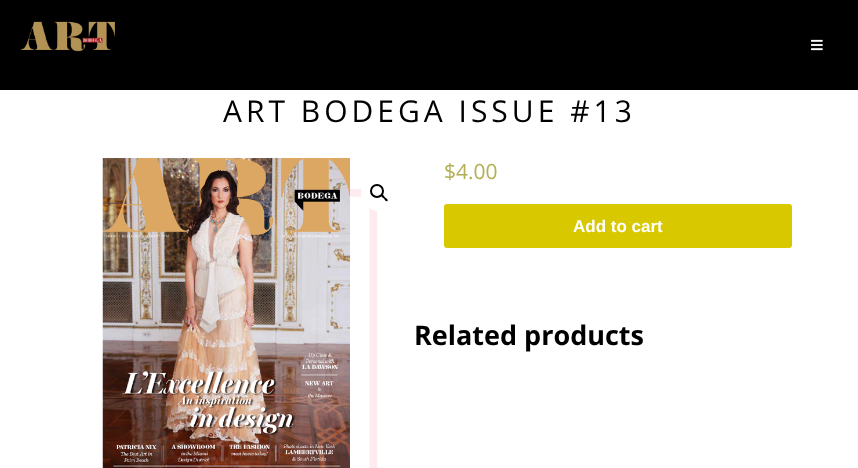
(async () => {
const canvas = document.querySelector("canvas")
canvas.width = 858
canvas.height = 468
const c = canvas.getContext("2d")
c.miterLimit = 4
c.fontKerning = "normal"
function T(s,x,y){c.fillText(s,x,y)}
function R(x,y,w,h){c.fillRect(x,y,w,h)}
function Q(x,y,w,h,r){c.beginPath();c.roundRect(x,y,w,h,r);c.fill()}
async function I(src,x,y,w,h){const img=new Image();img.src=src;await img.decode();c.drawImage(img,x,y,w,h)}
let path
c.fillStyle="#fff"
R(0,0,858,468)
c.fillStyle="#000"
R(0,0,858,90)
await I("1.png",20,21,95,31)
await I("2.png",811,39,12,12)
c.letterSpacing="4px"
c.font="30px Open Sans"
T("ART BODEGA ISSUE #13",223,122)
await I("3.png",102,158,276,310)
c.fillStyle="#fff"
c.beginPath()
c.arc(379,193,18,0,7)
c.fill()
c.beginPath()
c.arc(377,191,6,0,7)
c.strokeStyle="#000"
c.lineWidth=2
c.stroke()
c.fillStyle="#000"
path = new Path2D("M381.5 195c1.5-1 3 1.5 3.5 2.5c1 .5 3.5 2 2.5 3.5c-1.5 1-3-1.5-3.5-2.5c-1-.5-3.5-2-2.5-3.5z")
c.fill(path)
c.letterSpacing="0px"
c.font="21px Open Sans"
c.fillStyle="#b3af54"
T("$4.00",444,179)
c.fillStyle="#d8c800"
Q(444,204,348,44,3)
c.font="bold 17px Liberation Sans"
c.fillStyle="#fff"
T("Add to cart",573,232)
c.font="bold 27px Open Sans"
c.fillStyle="#000"
T("Related products",414,345)
})()
